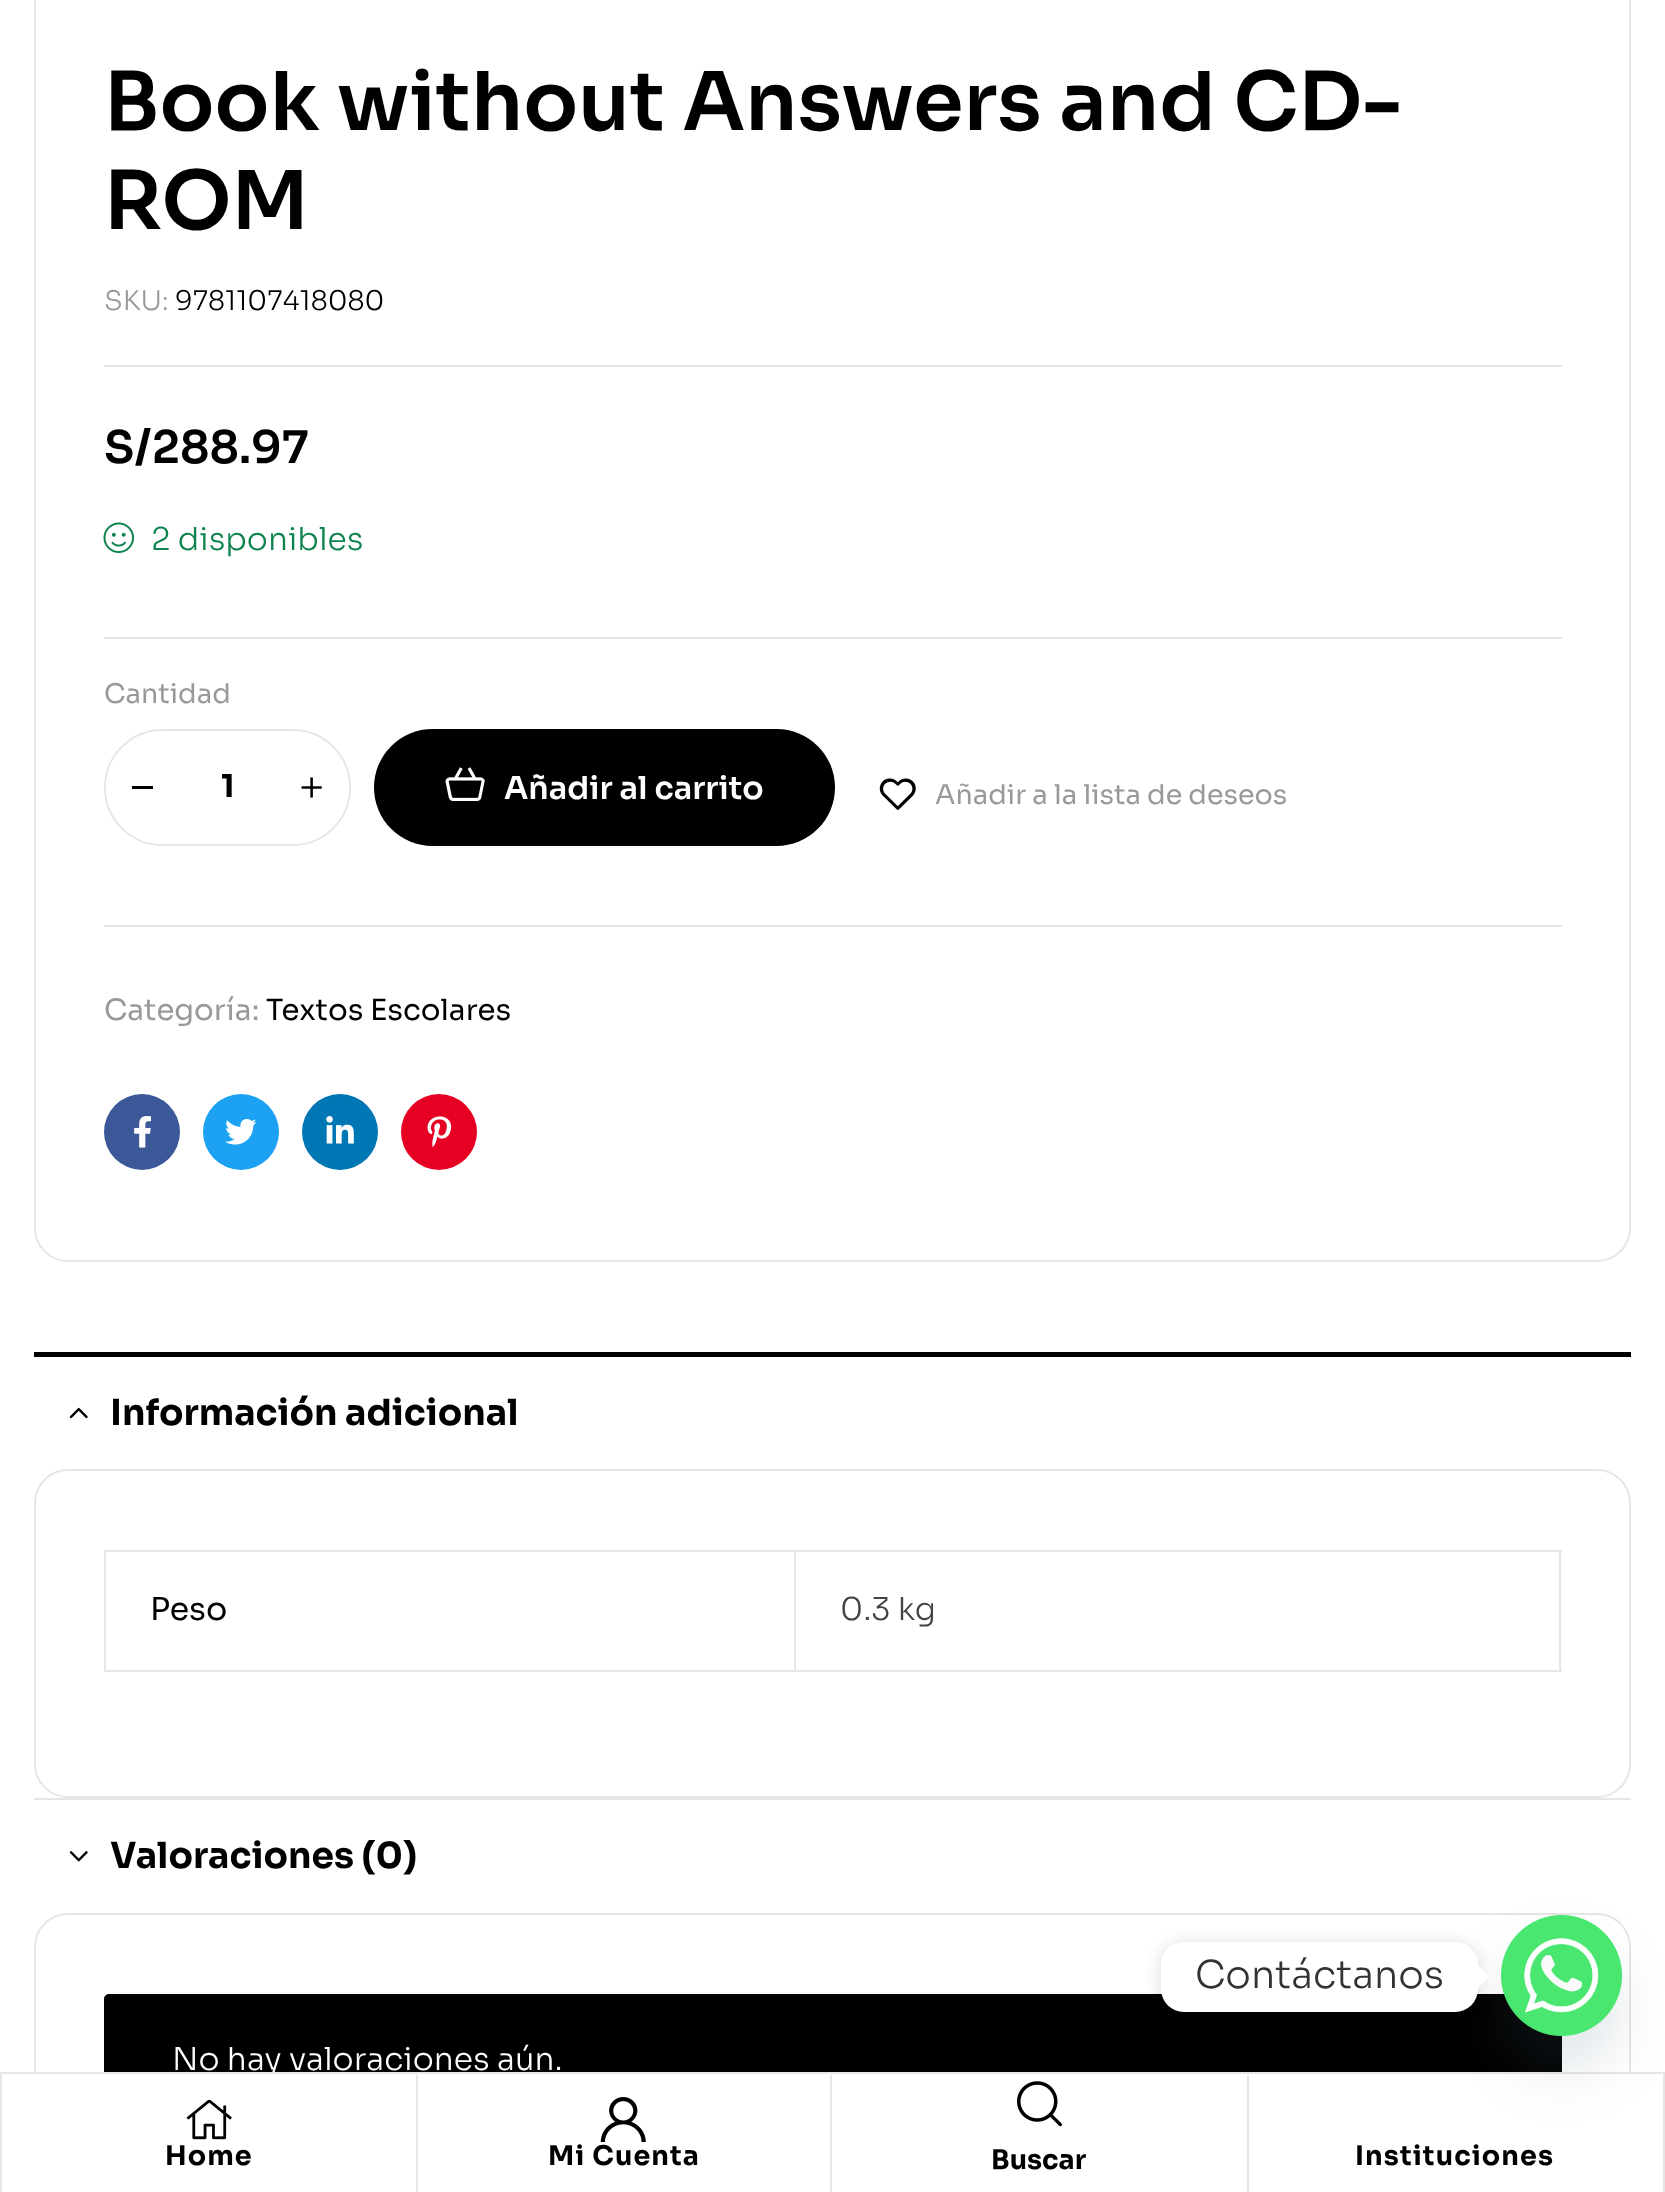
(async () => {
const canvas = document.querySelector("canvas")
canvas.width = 1665
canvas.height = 2192
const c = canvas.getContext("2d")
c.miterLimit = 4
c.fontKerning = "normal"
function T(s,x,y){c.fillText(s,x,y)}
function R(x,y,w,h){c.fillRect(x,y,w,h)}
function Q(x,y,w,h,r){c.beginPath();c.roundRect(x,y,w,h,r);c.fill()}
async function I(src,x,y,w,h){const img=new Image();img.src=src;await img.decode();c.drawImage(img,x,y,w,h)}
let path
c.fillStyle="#fff"
R(0,0,1665,2192)
c.beginPath()
c.roundRect(35,-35,1595,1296,33)
c.strokeStyle="#e6e6e6"
c.lineWidth=2
c.stroke()
c.font="600 81px Sora"
c.fillStyle="#000"
T("Book without Answers and CD-",104,130)
T("ROM",104,229)
c.fillStyle="#e6e6e6"
R(104,365,1458,2)
c.font="300 27px Sora"
c.fillStyle="#999"
T("SKU:",104,310)
c.fillStyle="#000"
T("9781107418080",175,310)
c.font="600 45px Sora"
T("S/288.97",104,463)
await I("1.png",103,522,31,31)
c.font="300 31.5px Sora"
c.fillStyle="#0f834d"
T("2 disponibles",151,550)
c.fillStyle="#e6e6e6"
R(104,637,1458,2)
R(104,925,1458,2)
c.font="27px Sora"
c.fillStyle="#999"
T("Cantidad",104,703)
c.beginPath()
c.roundRect(105,730,245,115,57.5)
c.stroke()
c.fillStyle="#fff"
c.beginPath()
c.roundRect(106,731,72,113,[56.5,0,0,56.5])
c.fill()
c.fillStyle="#000"
R(132,786,21,3)
c.font="bold 31.5px Sora"
T("1",221,797)
c.fillStyle="#fff"
c.beginPath()
c.roundRect(277,731,72,113,[0,56.5,56.5,0])
c.fill()
await I("2.png",301,777,21,21)
c.fillStyle="#000"
Q(374,729,461,117,58.5)
await I("3.png",445,767,40,34)
c.font="600 31.5px Sora"
c.fillStyle="#fff"
T("Añadir al carrito",504,799)
await I("4.png",879,778,37,32)
c.font="27px Sora"
c.fillStyle="#999"
T("Añadir a la lista de deseos",935,804)
c.font="29.25px Sora"
T("Categoría:",104,1020)
c.fillStyle="#000"
T("Textos Escolares",266,1020)
c.fillStyle="#3b5998"
c.beginPath()
c.arc(142,1132,38,0,7)
c.fill()
await I("5.png",134,1116,18,32)
c.fillStyle="#1da1f2"
c.beginPath()
c.arc(241,1132,38,0,7)
c.fill()
await I("6.png",225,1119,32,26)
c.fillStyle="#0077b5"
c.beginPath()
c.arc(340,1132,38,0,7)
c.fill()
await I("7.png",326,1116,28,28)
c.fillStyle="#e60023"
c.beginPath()
c.arc(439,1132,38,0,7)
c.fill()
await I("8.png",427,1116,25,32)
c.fillStyle="#000"
R(34,1352,1597,5)
await I("9.png",69,1407,19,12)
c.font="bold 36px Sora"
T("Información adicional",110,1425)
c.beginPath()
c.roundRect(35,1470,1595,327,33)
c.stroke()
c.fillStyle="#e6e6e6"
R(794,1550,768,2)
R(1559,1550,2,122)
R(794,1670,768,2)
R(794,1550,2,122)
R(104,1550,693,2)
R(104,1670,693,2)
R(104,1550,2,122)
c.font="31.5px Sora"
c.fillStyle="#000"
T("Peso",150,1620)
c.font="300 31.5px Sora"
c.fillStyle="#444"
T("0.3 kg",840,1620)
c.fillStyle="#e6e6e6"
R(34,1798,1597,2)
await I("10.png",69,1851,19,11)
c.font="bold 36px Sora"
c.fillStyle="#000"
T("Valoraciones (0)",110,1868)
c.beginPath()
c.roundRect(35,1914,1595,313,33)
c.stroke()
Q(104,1994,1458,126,5)
c.fillStyle="#00000026"
R(104,1996,1,2)
c.font="300 31.5px Sora"
c.fillStyle="#fff"
T("No hay valoraciones aún.",172,2070)
R(34,2074,1597,118)
c.strokeRect(1,2073,1663,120)
c.fillStyle="#e6e6e6"
R(416,2075,2,117)
await I("11.png",186,2099,46,41)
c.letterSpacing="1.1px"
c.font="bold 27px Sora"
c.fillStyle="#000"
T("Home",165,2165)
c.fillStyle="#e6e6e6"
R(830,2075,2,117)
await I("12.png",600,2097,46,45)
c.fillStyle="#000"
T("Mi Cuenta",548,2165)
c.fillStyle="#e6e6e6"
R(1247,2075,2,117)
await I("13.png",1017,2081,45,46)
c.letterSpacing="0px"
c.fillStyle="#000"
T("Buscar",991,2169)
c.letterSpacing="1.1px"
T("Instituciones",1355,2165)
c.fillStyle="#49687e29"
c.filter="blur(27px)"
c.beginPath()
c.roundRect(1501,1951,121,121,60.5)
c.fill()
c.filter="none"
await I("14.png",1501,1915,121,121)
c.save()
path = new Path2D("M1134 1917h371v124h-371zm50 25h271c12.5 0 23 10.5 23 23v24c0 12.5-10.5 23-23 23h-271c-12.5 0-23-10.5-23-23v-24c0-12.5 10.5-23 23-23z")
c.clip(path,"evenodd")
c.fillStyle="#00000026"
c.filter="blur(8.5px)"
c.beginPath()
c.roundRect(1161,1944,317,70,23)
c.fill()
c.filter="none"
c.restore()
c.fillStyle="#fff"
Q(1161,1942,317,70,23)
c.letterSpacing="0px"
c.font="300 38.25px Sora"
c.fillStyle="#333"
T("Contáctanos",1195,1988)
c.fillStyle="#fff"
path = new Path2D("M1478 1988v-22.5l11.5 11z")
c.fill(path)
})()
